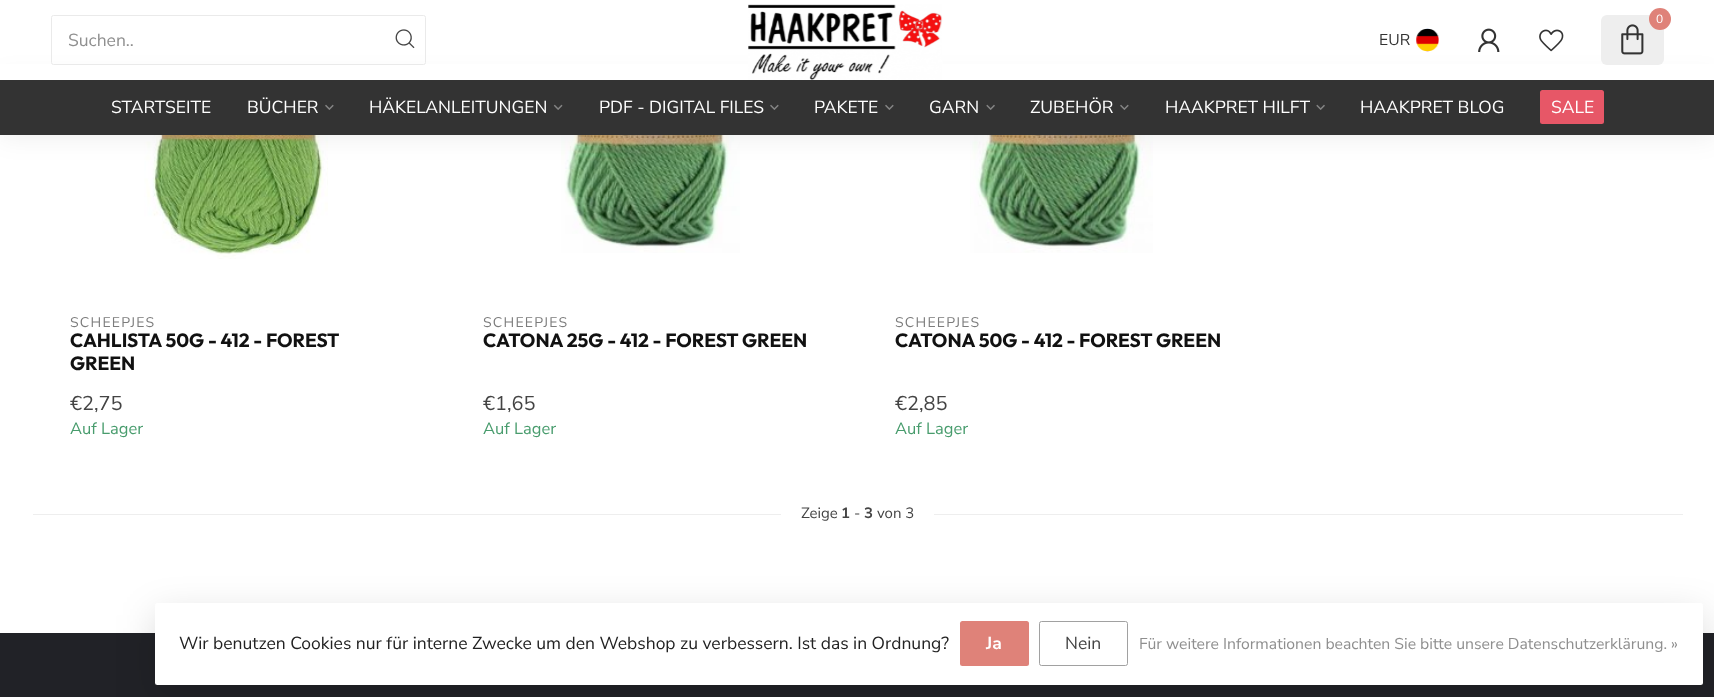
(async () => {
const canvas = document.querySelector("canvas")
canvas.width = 1714
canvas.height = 697
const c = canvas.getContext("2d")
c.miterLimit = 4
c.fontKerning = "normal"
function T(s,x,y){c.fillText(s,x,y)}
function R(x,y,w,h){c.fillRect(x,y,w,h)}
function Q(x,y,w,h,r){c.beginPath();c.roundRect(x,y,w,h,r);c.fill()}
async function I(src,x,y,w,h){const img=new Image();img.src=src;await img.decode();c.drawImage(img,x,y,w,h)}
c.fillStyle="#fff"
R(0,0,1714,697)
await I("10.png",144,135,184,124)
await I("11.png",561,135,179,118)
await I("12.png",970,135,183,118)
c.fillStyle="#00000014"
c.filter="blur(14px)"
c.beginPath()
c.rect(0,80,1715,55)
c.fill()
c.filter="none"
c.fillStyle="#fff"
R(0,64,1714,16)
c.beginPath()
c.roundRect(51.5,15.5,374,49,2)
c.strokeStyle="#eaeaea"
c.stroke()
c.font="17.5px Nunito Sans"
c.fillStyle="#8f8f8f"
T("Suchen..",68,46)
await I("1.png",395,29,20,20)
await I("2.png",748,4,195,76)
c.fillStyle="#eee"
Q(1601,15,63,50,6)
c.fillStyle="#df8279"
c.beginPath()
c.arc(1660,19,11,0,7)
c.fill()
c.font="12px Nunito Sans"
c.fillStyle="#fff"
T("0",1656,23)
await I("3.png",1621,24,23,31)
c.font="15.75px Nunito Sans"
c.fillStyle="#333"
T("EUR",1379,45)
await I("4.png",1416,28,23,24)
await I("5.png",1478,28,22,24)
await I("6.png",1539,29,25,23)
R(0,80,1714,55)
c.font="17.5px Nunito Sans"
c.fillStyle="#fff"
T("STARTSEITE",111,113)
T("BÜCHER",247,113)
await I("7.png",325,104,9,6)
T("HÄKELANLEITUNGEN",369,113)
await I("8.png",553,104,10,6)
T("PDF - DIGITAL FILES",599,113)
await I("7.png",770,104,9,6)
T("PAKETE",814,113)
await I("7.png",885,104,9,6)
T("GARN",929,113)
await I("9.png",986,104,9,6)
T("ZUBEHÖR",1030,113)
await I("7.png",1120,104,9,6)
T("HAAKPRET HILFT",1165,113)
await I("9.png",1316,104,9,6)
T("HAAKPRET BLOG",1360,113)
c.fillStyle="#e75767"
Q(1540,90,64,34,2.5)
c.fillStyle="#fff"
T("SALE",1551,113)
c.letterSpacing="1.25px"
c.font="14px Nunito Sans"
c.fillStyle="#7c7c7c"
T("SCHEEPJES",70,327)
c.letterSpacing="0px"
c.font="bold 19.25px Outfit"
c.fillStyle="#111"
T("CAHLISTA 50G - 412 - FOREST",70,347)
T("GREEN",70,370)
c.font="20px Nunito Sans"
c.fillStyle="#444"
T("€2,75",70,410)
c.font="16.5px Nunito Sans"
c.fillStyle="#489c6d"
T("Auf Lager",70,434)
c.letterSpacing="1.25px"
c.font="14px Nunito Sans"
c.fillStyle="#7c7c7c"
T("SCHEEPJES",483,327)
c.letterSpacing="0px"
c.font="bold 19.25px Outfit"
c.fillStyle="#111"
T("CATONA 25G - 412 - FOREST GREEN",483,347)
c.font="20px Nunito Sans"
c.fillStyle="#444"
T("€1,65",483,410)
c.font="16.5px Nunito Sans"
c.fillStyle="#489c6d"
T("Auf Lager",483,434)
c.letterSpacing="1.25px"
c.font="14px Nunito Sans"
c.fillStyle="#7c7c7c"
T("SCHEEPJES",895,327)
c.letterSpacing="0px"
c.font="bold 19.25px Outfit"
c.fillStyle="#111"
T("CATONA 50G - 412 - FOREST GREEN",895,347)
c.font="20px Nunito Sans"
c.fillStyle="#444"
T("€2,85",895,410)
c.font="16.5px Nunito Sans"
c.fillStyle="#489c6d"
T("Auf Lager",895,434)
c.fillStyle="#eee"
R(33,514,1650,1)
c.fillStyle="#fff"
R(781,514,153,1)
c.font="15px Nunito Sans"
c.fillStyle="#444"
T("Zeige",801,518)
c.font="bold 15px Nunito Sans"
T("1",841,518)
c.font="15px Nunito Sans"
T("-",854,518)
c.font="bold 15px Nunito Sans"
T("3",864,518)
c.font="15px Nunito Sans"
T("von 3",877,518)
c.fillStyle="#212227"
R(0,633,1714,64)
c.fillStyle="#00000026"
c.filter="blur(19px)"
c.beginPath()
c.roundRect(155,615,1548,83,2.5)
c.fill()
c.filter="none"
c.fillStyle="#fff"
Q(155,603,1548,82,2.5)
c.font="17.5px Nunito Sans"
c.fillStyle="#222"
T("Wir benutzen Cookies nur für interne Zwecke um den Webshop zu verbessern. Ist das in Ordnung?",179,649)
c.fillStyle="#df8279"
Q(960,621,69,45,2.5)
c.font="bold 17.5px Nunito Sans"
c.fillStyle="#fff"
T("Ja",986,649)
c.beginPath()
c.roundRect(1039.5,621.5,88,44,2)
c.strokeStyle="#a1a1a1"
c.stroke()
c.font="17.5px Nunito Sans"
c.fillStyle="#444"
T("Nein",1065,649)
c.font="15.75px Nunito Sans"
c.fillStyle="#8f8f8f"
T("Für weitere Informationen beachten Sie bitte unsere Datenschutzerklärung. »",1139,649)
})()
